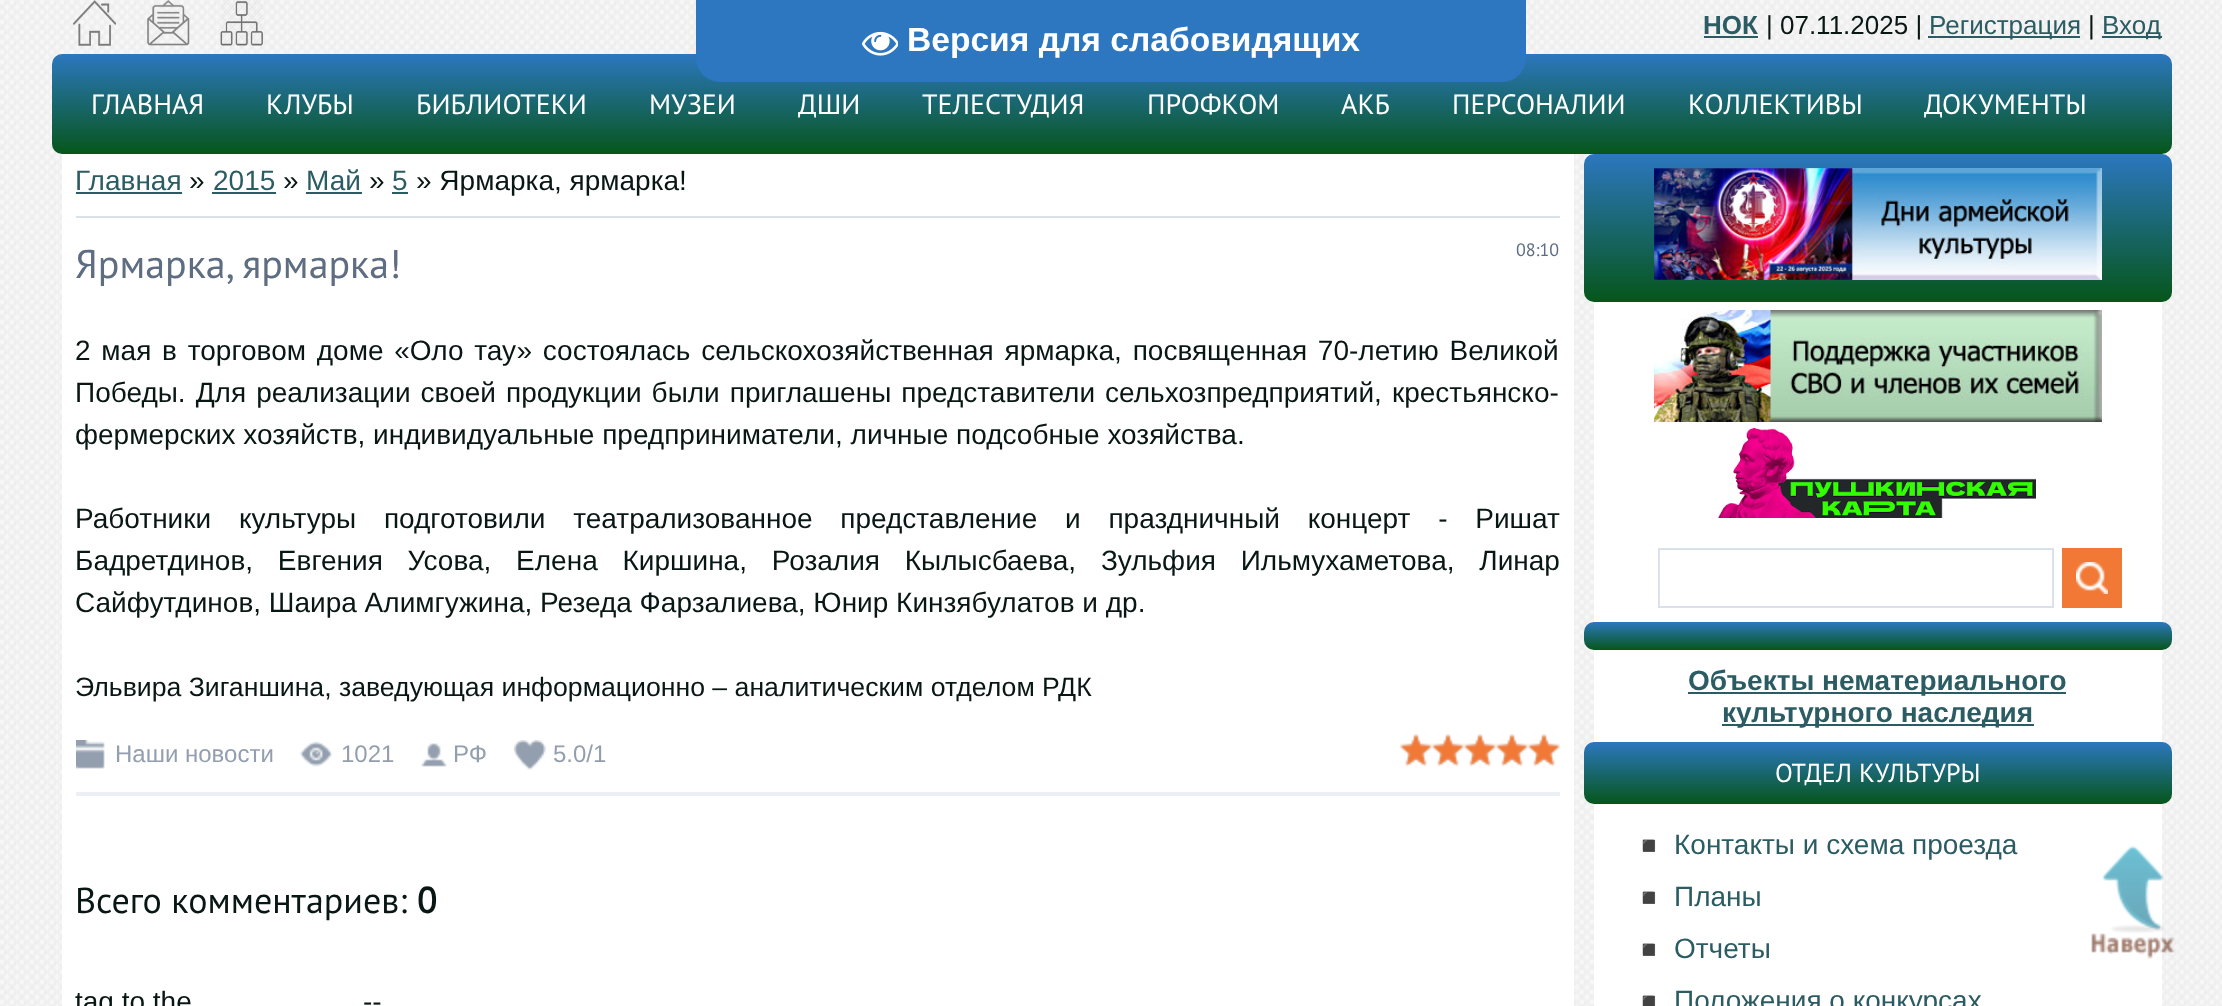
(async () => {
const canvas = document.querySelector("canvas")
canvas.width = 2222
canvas.height = 1006
const c = canvas.getContext("2d")
c.miterLimit = 4
c.fontKerning = "normal"
function T(s,x,y){c.fillText(s,x,y)}
function R(x,y,w,h){c.fillRect(x,y,w,h)}
function Q(x,y,w,h,r){c.beginPath();c.roundRect(x,y,w,h,r);c.fill()}
async function I(src,x,y,w,h){const img=new Image();img.src=src;await img.decode();c.drawImage(img,x,y,w,h)}
let gradient
c.fillStyle="#fff"
R(0,0,2222,1006)
await I("1.png",0,0,2222,1006)
await I("2.png",72,0,44,46)
await I("3.png",147,0,43,46)
await I("4.png",220,0,43,46)
c.font="bold 26px Liberation Sans"
c.fillStyle="#2c5c63"
T("НОК",1703,34)
R(1704,36,54,2)
c.font="26px Liberation Sans"
c.fillStyle="#091714"
T("| 07.11.2025 |",1766,34)
c.fillStyle="#2c5c63"
R(1928,36,152,2)
T("Регистрация",1929,34)
c.fillStyle="#091714"
T("|",2088,34)
c.fillStyle="#2c5c63"
R(2102,36,60,2)
T("Вход",2102,34)
gradient = c.createLinearGradient(1112,54,1112,154)
gradient.addColorStop(0,"#2c77bf")
gradient.addColorStop(1,"#06561b")
c.fillStyle = gradient
Q(52,54,2120,100,10)
c.font="28px PT Sans"
c.fillStyle="#fff"
T("ГЛАВНАЯ",91,114)
T("КЛУБЫ",266,114)
T("БИБЛИОТЕКИ",416,114)
T("МУЗЕИ",649,114)
T("ДШИ",798,114)
T("ТЕЛЕСТУДИЯ",922,114)
T("ПРОФКОМ",1147,114)
T("АКБ",1341,114)
T("ПЕРСОНАЛИИ",1452,114)
T("КОЛЛЕКТИВЫ",1688,114)
T("ДОКУМЕНТЫ",1924,114)
c.fillStyle="#2c77bf"
c.beginPath()
c.roundRect(696,0,830,82,[0,0,24,24])
c.fill()
await I("5.png",862,31,36,25)
c.font="bold 33.6px Liberation Sans"
c.fillStyle="#fff"
T("Версия для слабовидящих",907,51)
R(62,154,1512,852)
c.font="28px Liberation Sans"
c.fillStyle="#2c5c63"
T("Главная",75,190)
R(76,192,106,2)
c.fillStyle="#091714"
T("»",189,190)
c.fillStyle="#2c5c63"
T("2015",213,190)
R(212,192,64,2)
c.fillStyle="#091714"
T("»",283,190)
c.fillStyle="#2c5c63"
T("Май",306,190)
R(306,192,56,2)
c.fillStyle="#091714"
T("»",369,190)
c.fillStyle="#2c5c63"
T("5",392,190)
R(392,192,16,2)
c.fillStyle="#091714"
T("» Ярмарка, ярмарка!",416,190)
c.fillStyle="#dbe1e8"
R(76,216,1484,2)
c.fillStyle="#eceff3"
R(76,792,1484,4)
c.font="40px PT Sans"
c.fillStyle="#5e6d81"
T("Ярмарка, ярмарка!",75,278)
c.font="18px PT Sans"
T("08:10",1516,256)
c.wordSpacing="3px"
c.font="28px Liberation Sans"
c.fillStyle="#091714"
T("2 мая в торговом доме «Оло тау» состоялась сельскохозяйственная ярмарка, посвященная 70-летию Великой",75,360)
c.wordSpacing="2.25px"
T("Победы. Для реализации своей продукции были приглашены представители сельхозпредприятий, крестьянско-",75,402)
c.wordSpacing="0px"
T("фермерских хозяйств, индивидуальные предприниматели, личные подсобные хозяйства.",75,444)
c.wordSpacing="20px"
T("Работники культуры подготовили театрализованное представление и праздничный концерт - Ришат",75,528)
c.wordSpacing="17px"
T("Бадретдинов, Евгения Усова, Елена Киршина, Розалия Кылысбаева, Зульфия Ильмухаметова, Линар",75,570)
c.wordSpacing="0px"
T("Сайфутдинов, Шаира Алимгужина, Резеда Фарзалиева, Юнир Кинзябулатов и др.",75,612)
c.font="26.65px Liberation Sans"
T("Эльвира Зиганшина, заведующая информационно – аналитическим отделом РДК",75,696)
await I("6.png",76,740,29,29)
c.font="24px Liberation Sans"
c.fillStyle="#939fae"
T("Наши новости",115,762)
await I("7.png",300,741,33,26)
T("1021",341,762)
await I("8.png",421,743,26,24)
T("РФ",453,762)
await I("9.png",514,740,32,30)
T("5.0/1",553,762)
await I("10.png",1400,734,160,32)
await I("11.png",1400,734,160,32)
c.font="36px PT Sans"
c.fillStyle="#091714"
T("Всего комментариев:",75,913)
c.font="bold 36px PT Sans"
T("0",417,913)
c.font="28px Liberation Sans"
T("tag to the",75,1011)
T("--",363,1011)
c.fillStyle="#fff"
R(1594,302,568,704)
gradient = c.createLinearGradient(1878,154,1878,302)
gradient.addColorStop(0,"#2c77bf")
gradient.addColorStop(1,"#06561b")
c.fillStyle = gradient
Q(1584,154,588,148,10)
await I("12.png",1654,168,448,112)
await I("13.png",1654,310,448,112)
await I("14.png",1718,428,318,90)
c.strokeStyle="#dbe1e8"
c.lineWidth=2
c.strokeRect(1659,549,394,58)
c.fillStyle="#f27935"
R(2062,548,60,60)
await I("15.png",2076,562,32,32)
gradient = c.createLinearGradient(1878,622,1878,650)
gradient.addColorStop(0,"#2c77bf")
gradient.addColorStop(1,"#06561b")
c.fillStyle = gradient
Q(1584,622,588,28,10)
c.fillStyle="#2c5c63"
R(1688,692,378,2)
c.font="bold 28px Liberation Sans"
T("Объекты нематериального",1688,690)
R(1722,724,312,2)
T("культурного наследия",1722,722)
gradient = c.createLinearGradient(1878,742,1878,804)
gradient.addColorStop(0,"#2c77bf")
gradient.addColorStop(1,"#06561b")
c.fillStyle = gradient
Q(1584,742,588,62,10)
c.font="26px PT Sans"
c.fillStyle="#fff"
T("ОТДЕЛ КУЛЬТУРЫ",1775,782)
c.font="24px Noto Color Emoji"
c.fillStyle="#dadddf"
T("◾",1634,854)
c.font="28px Liberation Sans"
c.fillStyle="#2c5c63"
T("Контакты и схема проезда",1674,854)
c.font="24px Noto Color Emoji"
c.fillStyle="#dadddf"
T("◾",1634,906)
c.font="28px Liberation Sans"
c.fillStyle="#2c5c63"
T("Планы",1674,906)
c.font="24px Noto Color Emoji"
c.fillStyle="#dadddf"
T("◾",1634,958)
c.font="28px Liberation Sans"
c.fillStyle="#2c5c63"
T("Отчеты",1674,958)
c.font="24px Noto Color Emoji"
c.fillStyle="#dadddf"
T("◾",1634,1010)
c.font="28px Liberation Sans"
c.fillStyle="#2c5c63"
T("Положения о конкурсах",1674,1010)
await I("16.png",2091,845,84,114)
})()
